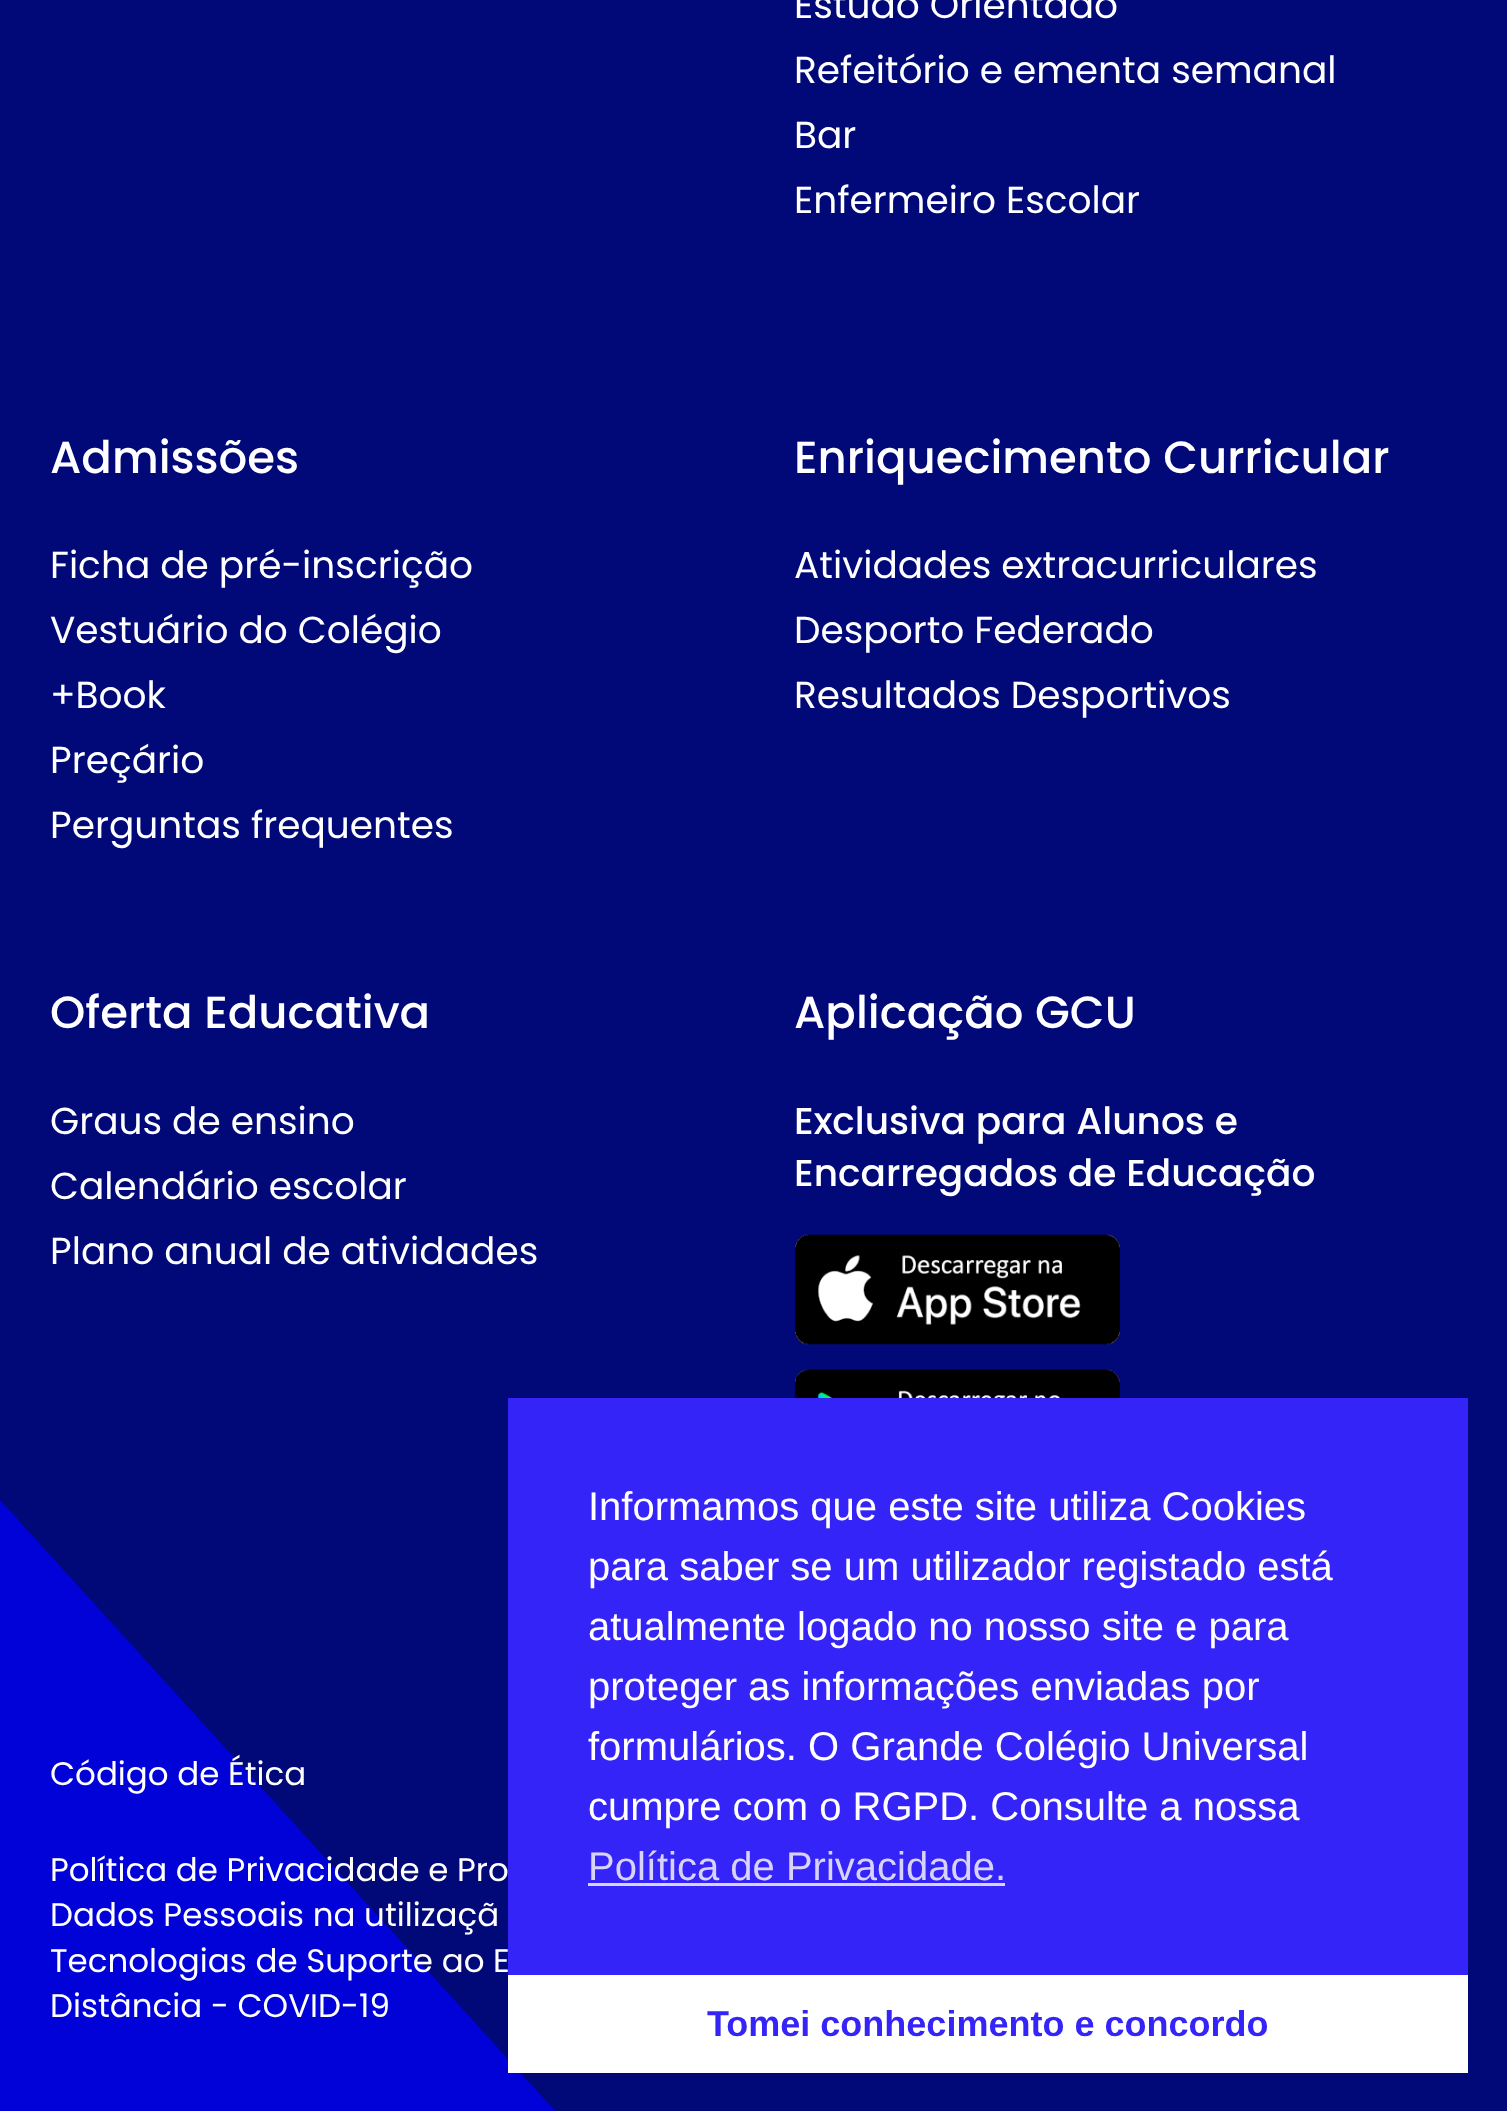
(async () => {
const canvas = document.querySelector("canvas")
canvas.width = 1507
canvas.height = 2111
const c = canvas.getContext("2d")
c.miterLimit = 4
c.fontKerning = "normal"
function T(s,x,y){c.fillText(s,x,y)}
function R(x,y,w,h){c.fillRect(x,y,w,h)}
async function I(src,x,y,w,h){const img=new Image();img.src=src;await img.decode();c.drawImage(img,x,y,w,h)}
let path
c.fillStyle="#000977"
R(0,0,1507,2111)
c.font="37.5px Poppins"
c.fillStyle="#fff"
T("Estudo Orientado",794,18)
T("Refeitório e ementa semanal",794,83)
T("Bar",794,148)
T("Enfermeiro Escolar",794,213)
c.font="500 45px Poppins"
T("Admissões",50,473)
c.font="37.5px Poppins"
T("Ficha de pré-inscrição",50,578)
T("Vestuário do Colégio",50,643)
T("+Book",50,708)
T("Preçário",50,773)
T("Perguntas frequentes",50,838)
c.font="500 45px Poppins"
T("Enriquecimento Curricular",794,473)
c.font="37.5px Poppins"
T("Atividades extracurriculares",794,578)
T("Desporto Federado",794,643)
T("Resultados Desportivos",794,708)
c.font="500 45px Poppins"
T("Oferta Educativa",50,1028)
c.font="37.5px Poppins"
T("Graus de ensino",50,1134)
T("Calendário escolar",50,1199)
T("Plano anual de atividades",50,1264)
c.font="500 45px Poppins"
T("Aplicação GCU",794,1028)
c.font="500 37.5px Poppins"
T("Exclusiva para Alunos e",794,1134)
T("Encarregados de Educação",794,1186)
await I("1.png",795,1234,325,111)
await I("2.png",795,1369,325,29)
c.fillStyle="#0002d7"
path = new Path2D("M0 1500v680h618")
c.fill(path)
c.font="32.5px Poppins"
c.fillStyle="#fff"
T("Código de Ética",50,1785)
T("Política de Privacidade e Pro",50,1881)
T("Dados Pessoais na utilizaçã",50,1926)
T("Tecnologias de Suporte ao E",50,1972)
T("Distância - COVID-19",50,2017)
c.fillStyle="#3524f7"
R(508,1398,960,577)
c.font="40px Liberation Sans"
c.fillStyle="#fff"
T("Informamos que este site utiliza Cookies",588,1520)
T("para saber se um utilizador registado está",588,1580)
T("atualmente logado no nosso site e para",588,1640)
T("proteger as informações enviadas por",588,1700)
T("formulários. O Grande Colégio Universal",588,1760)
T("cumpre com o RGPD. Consulte a nossa",588,1820)
c.fillStyle="#d7d3fd"
T("Política de Privacidade.",588,1880)
R(588,1883,417,3)
c.fillStyle="#fff"
R(508,1975,960,98)
c.font="bold 36px Liberation Sans"
c.fillStyle="#3524f7"
T("Tomei conhecimento e concordo",707,2036)
})()
